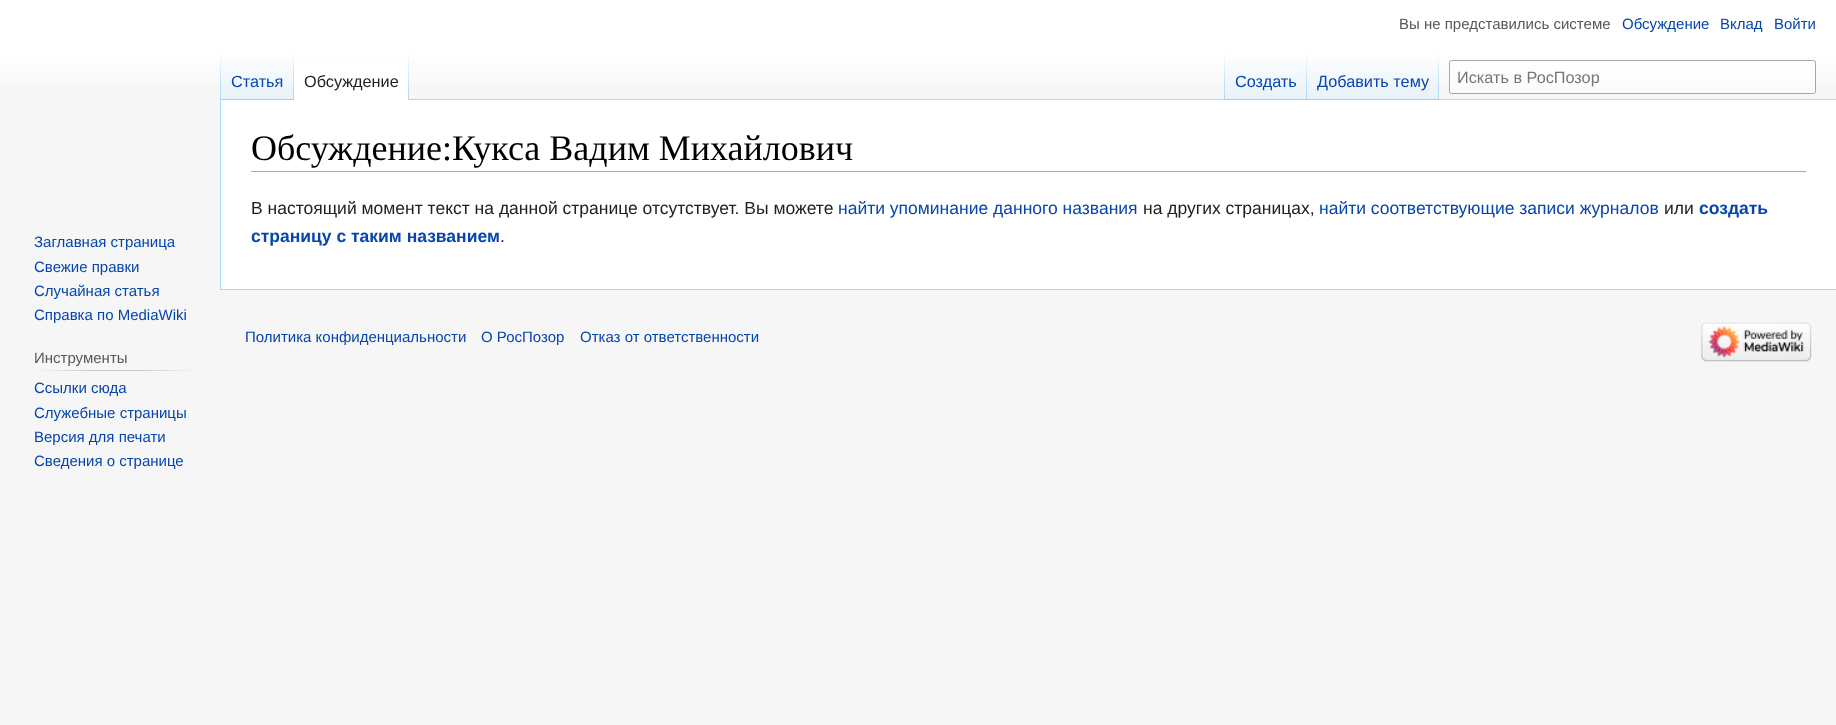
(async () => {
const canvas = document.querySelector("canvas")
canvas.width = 1836
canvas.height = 725
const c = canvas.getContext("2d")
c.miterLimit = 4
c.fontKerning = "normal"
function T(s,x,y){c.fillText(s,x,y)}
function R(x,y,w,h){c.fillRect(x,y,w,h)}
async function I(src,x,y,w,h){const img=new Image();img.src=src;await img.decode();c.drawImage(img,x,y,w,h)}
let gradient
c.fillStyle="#f6f6f6"
R(0,0,1836,725)
gradient = c.createLinearGradient(918,0,918,100)
gradient.addColorStop(.5,"#fff")
gradient.addColorStop(1,"#f6f6f6")
c.fillStyle = gradient
R(0,0,1836,86)
c.font="15px Liberation Sans"
c.fillStyle="#54595d"
T("Вы не представились системе",1399,29)
c.fillStyle="#0645ad"
T("Обсуждение",1622,29)
T("Вклад",1720,29)
T("Войти",1774,29)
c.fillStyle="#a7d7f9"
R(220,289,1616,1)
R(220,99,1,191)
gradient = c.createLinearGradient(221,50,221,100)
gradient.addColorStop(0,"#a7d7f900")
gradient.addColorStop(1,"#a7d7f9")
c.fillStyle = gradient
R(220,50,1,50)
gradient = c.createLinearGradient(258,100,258,50)
gradient.addColorStop(0,"#77c1f6")
gradient.addColorStop(.03,"#e8f2f8")
gradient.addColorStop(1,"#fff")
c.fillStyle = gradient
R(221,57,73,43)
gradient = c.createLinearGradient(293,50,293,100)
gradient.addColorStop(0,"#a7d7f900")
gradient.addColorStop(1,"#a7d7f9")
c.fillStyle = gradient
R(293,50,1,50)
c.font="16.25px Liberation Sans"
c.fillStyle="#0645ad"
T("Статья",231,87)
c.fillStyle="#fff"
R(294,64,114,36)
gradient = c.createLinearGradient(408,50,408,100)
gradient.addColorStop(0,"#fff")
gradient.addColorStop(1,"#a7d7f9")
c.fillStyle = gradient
R(408,50,1,50)
c.fillStyle="#202122"
T("Обсуждение",304,87)
c.fillStyle="#a7d7f9"
R(409,99,1427,1)
gradient = c.createLinearGradient(1224,50,1224,100)
gradient.addColorStop(0,"#a7d7f900")
gradient.addColorStop(1,"#a7d7f9")
c.fillStyle = gradient
R(1224,50,1,50)
gradient = c.createLinearGradient(1266,100,1266,50)
gradient.addColorStop(0,"#77c1f6")
gradient.addColorStop(.03,"#e8f2f8")
gradient.addColorStop(1,"#fff")
c.fillStyle = gradient
R(1225,57,83,43)
gradient = c.createLinearGradient(1307,50,1307,100)
gradient.addColorStop(0,"#a7d7f900")
gradient.addColorStop(1,"#a7d7f9")
c.fillStyle = gradient
R(1306,50,1,50)
c.fillStyle="#0645ad"
T("Создать",1235,87)
gradient = c.createLinearGradient(1373,100,1373,50)
gradient.addColorStop(0,"#77c1f6")
gradient.addColorStop(.03,"#e8f2f8")
gradient.addColorStop(1,"#fff")
c.fillStyle = gradient
R(1308,57,131,43)
gradient = c.createLinearGradient(1438,50,1438,100)
gradient.addColorStop(0,"#a7d7f900")
gradient.addColorStop(1,"#a7d7f9")
c.fillStyle = gradient
R(1438,50,1,50)
c.fillStyle="#0645ad"
T("Добавить тему",1317,87)
c.fillStyle="#ffffff80"
c.beginPath()
c.roundRect(1449.5,60.5,366,33,2)
c.fill()
c.strokeStyle="#a2a9b1"
c.stroke()
c.fillStyle="#72777d"
T("Искать в РосПозор",1457,83)
c.font="15px Liberation Sans"
c.fillStyle="#0645ad"
T("Заглавная страница",34,247)
T("Свежие правки",34,272)
T("Случайная статья",34,296)
T("Справка по MediaWiki",34,320)
gradient = c.createLinearGradient(34,371,198,371)
gradient.addColorStop(0,"#f6f6f6")
gradient.addColorStop(.33,"#c8ccd1")
gradient.addColorStop(.66,"#c8ccd1")
gradient.addColorStop(1,"#f6f6f6")
c.fillStyle = gradient
R(34,370,164,1)
c.fillStyle="#54595d"
T("Инструменты",34,363)
c.fillStyle="#0645ad"
T("Ссылки сюда",34,393)
T("Служебные страницы",34,418)
T("Версия для печати",34,442)
T("Сведения о странице",34,466)
c.fillStyle="#fff"
R(221,100,1615,189)
c.fillStyle="#a2a9b1"
R(251,171,1555,1)
c.font="36px Liberation Serif"
c.fillStyle="#000"
T("Обсуждение:Кукса Вадим Михайлович",251,160)
c.font="17.5px Liberation Sans"
c.fillStyle="#202122"
T("В настоящий момент текст на данной странице отсутствует. Вы можете",251,214)
c.fillStyle="#0645ad"
T("найти упоминание данного названия",838,214)
c.fillStyle="#202122"
T("на других страницах,",1143,214)
c.fillStyle="#0645ad"
T("найти соответствующие записи журналов",1319,214)
c.fillStyle="#202122"
T("или",1664,214)
c.font="bold 17.5px Liberation Sans"
c.fillStyle="#0645ad"
T("создать",1699,214)
T("страницу с таким названием",251,242)
c.font="17.5px Liberation Sans"
c.fillStyle="#202122"
T(".",500,242)
c.font="15px Liberation Sans"
c.fillStyle="#0645ad"
T("Политика конфиденциальности",245,342)
T("О РосПозор",481,342)
T("Отказ от ответственности",580,342)
await I("1.png",1701,322,111,40)
})()
